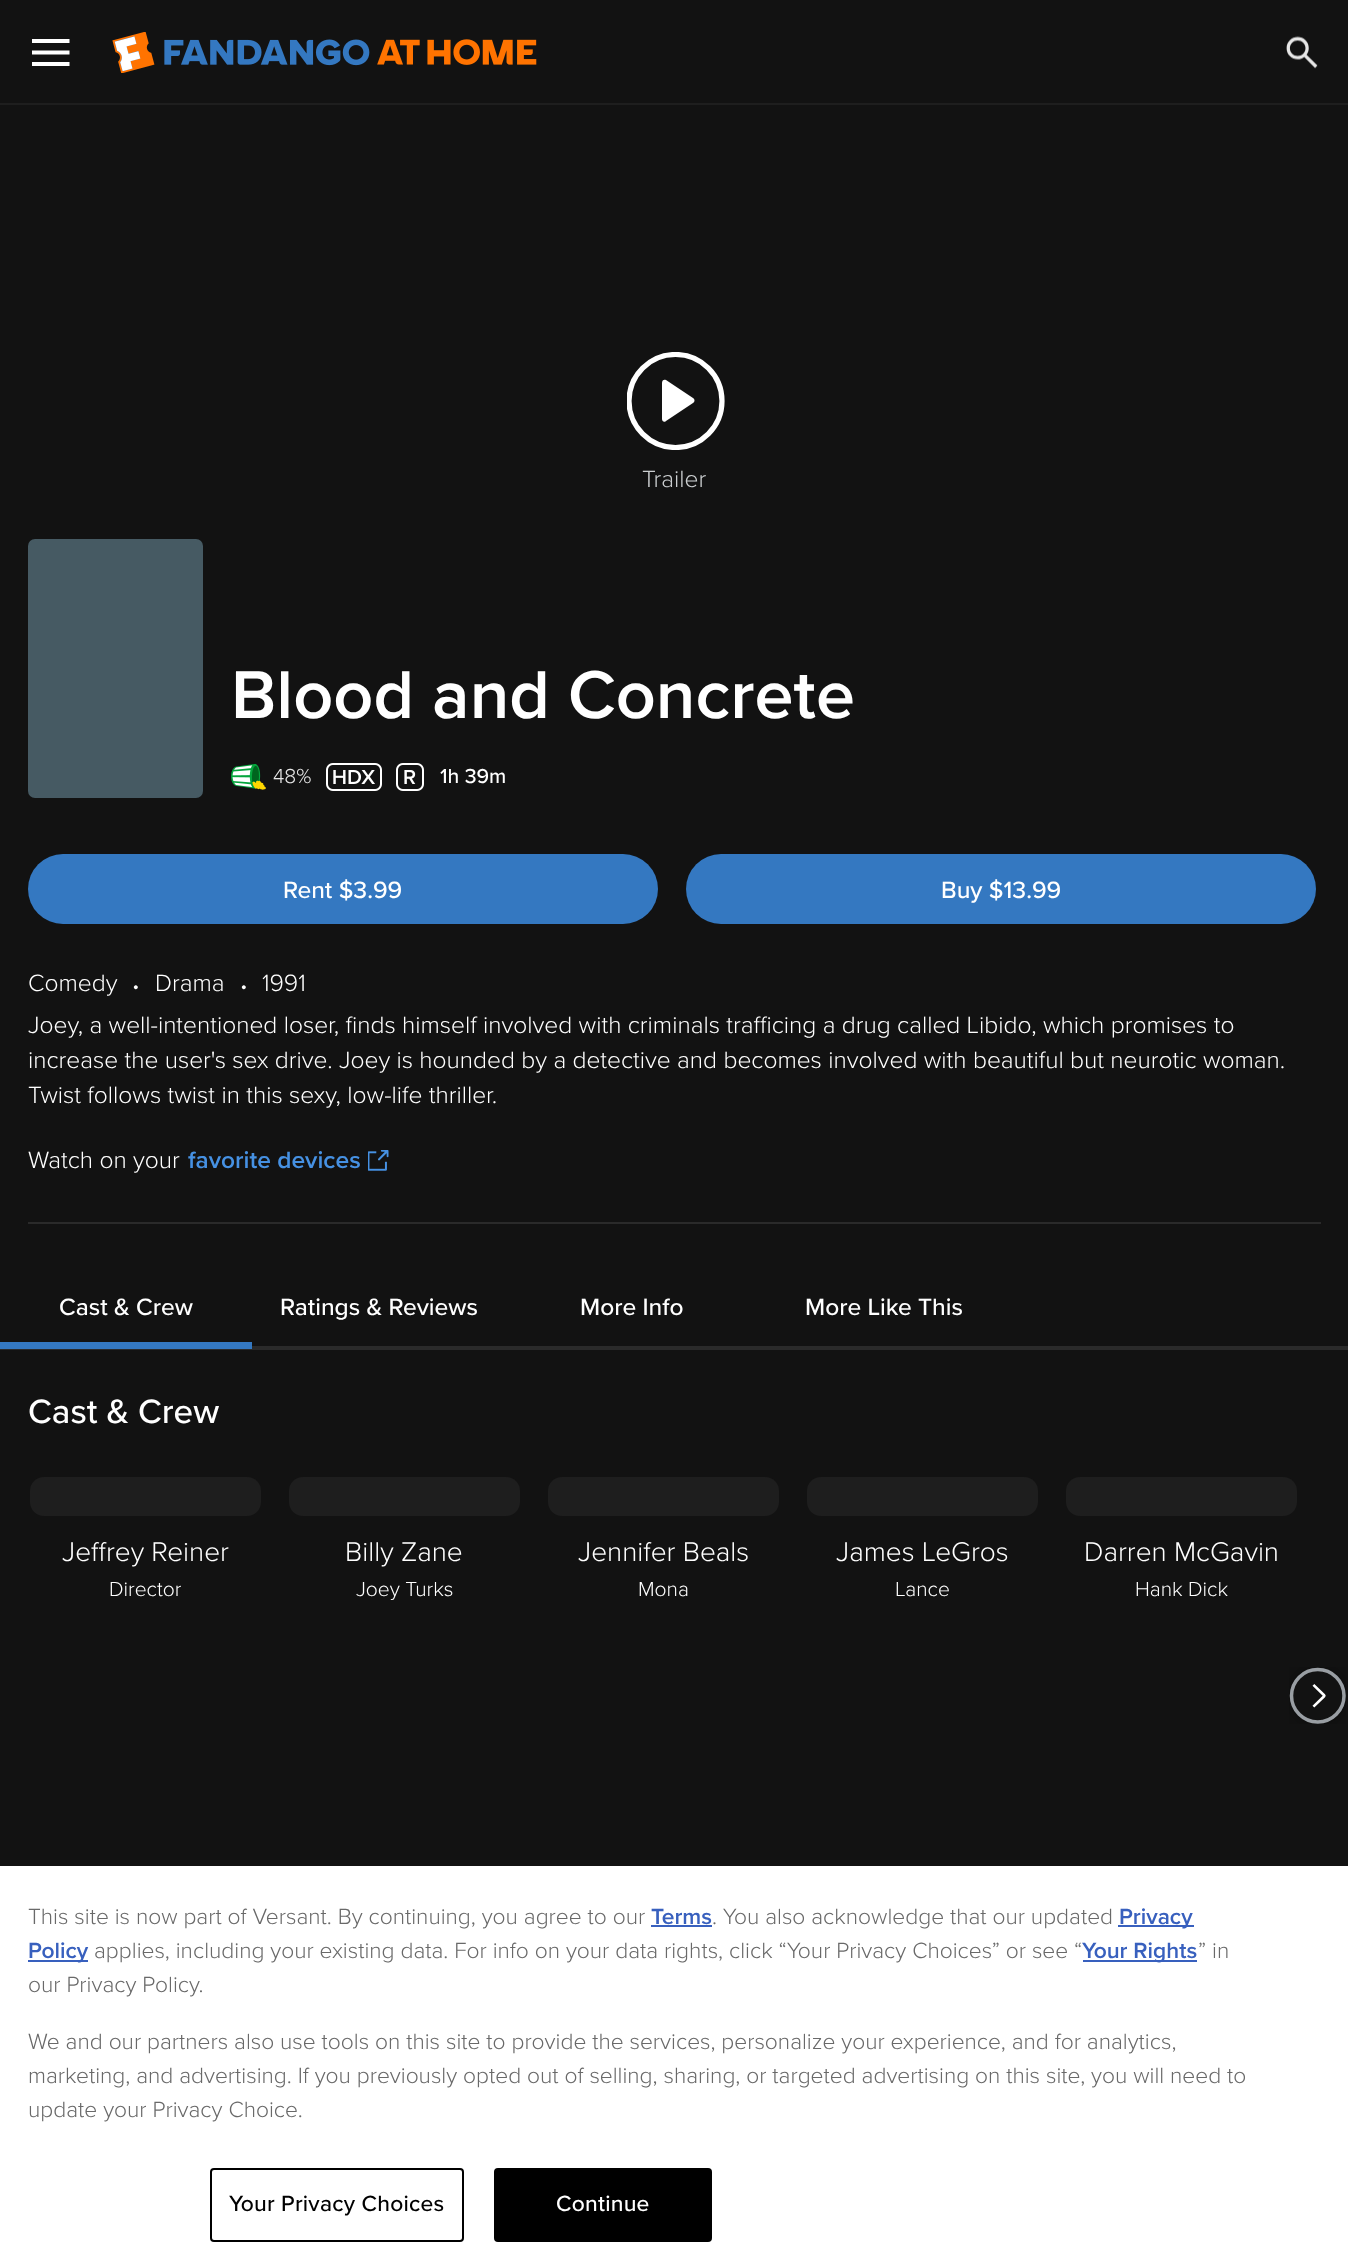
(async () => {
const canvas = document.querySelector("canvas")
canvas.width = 1348
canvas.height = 2258
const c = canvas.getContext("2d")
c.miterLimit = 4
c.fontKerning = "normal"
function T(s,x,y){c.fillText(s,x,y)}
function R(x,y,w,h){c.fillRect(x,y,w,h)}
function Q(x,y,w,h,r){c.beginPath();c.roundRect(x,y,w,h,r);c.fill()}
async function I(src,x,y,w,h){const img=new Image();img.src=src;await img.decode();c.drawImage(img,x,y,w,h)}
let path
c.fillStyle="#121212"
R(0,0,1348,2258)
c.fillStyle="#1e1e1e"
R(0,103,1348,2)
c.fillStyle="#fff"
path = new Path2D("M69.5 43h-37.5v-4h37.5zm0 11.5h-37.5v-4h37.5zm0 11.5h-37.5v-4h37.5z")
c.fill(path,"evenodd")
await I("1.png",112,32,425,41)
await I("2.png",1286,36,32,33)
c.save()
c.beginPath()
c.rect(627,352,98,98)
c.clip()
c.beginPath()
c.arc(675.5,401,46.5,0,7)
c.strokeStyle="#fff"
c.lineWidth=5.2
c.stroke()
c.restore()
path = new Path2D("M693 398l-27-18c-2-1-4 0-4 3v36c0 2 2 4 4 2l27-18c2-1 2-4 0-5z")
c.fill(path,"evenodd")
c.font="300 24.5px Proxima Nova"
c.fillStyle="#cccfd1"
T("Trailer",642,487)
c.fillStyle="#465a63"
Q(28,539,175,259,7)
c.font="600 70px Proxima Nova"
c.fillStyle="#fff"
T("Blood and Concrete",231,718)
await I("3.png",231,763,35,27)
c.font="300 21px Proxima Nova"
c.fillStyle="#e7e7e7"
T("48%",273,783)
await I("4.png",326,763,56,28)
await I("5.png",396,763,28,28)
c.font="500 21px Proxima Nova"
c.fillStyle="#fff"
T("1h 39m",440,783)
c.fillStyle="#3478c1"
Q(28,854,630,70,35)
c.font="500 24.5px Proxima Nova"
c.fillStyle="#fff"
T("Rent $3.99",283,898)
c.fillStyle="#3478c1"
Q(686,854,630,70,35)
c.fillStyle="#fff"
T("Buy $13.99",941,898)
c.fillStyle="#2a2a2a"
R(28,1222,1293,2)
c.font="300 24.5px Proxima Nova"
c.fillStyle="#fff"
T("Comedy",28,991)
c.font="300 44px Proxima Nova"
T("·",131,998)
c.font="300 24.5px Proxima Nova"
T("Drama",155,991)
c.font="300 44px Proxima Nova"
T("·",239,998)
c.font="300 24.5px Proxima Nova"
T("1991",262,991)
T("Joey, a well-intentioned loser, finds himself involved with criminals trafficing a drug called Libido, which promises to",28,1033)
T("increase the user's sex drive. Joey is hounded by a detective and becomes involved with beautiful but neurotic woman.",28,1068)
T("Twist follows twist in this sexy, low-life thriller.",28,1103)
T("Watch on your",28,1168)
c.font="600 24.5px Proxima Nova"
c.fillStyle="#4691e3"
T("favorite devices",188,1168)
await I("6.png",368,1150,21,21)
c.fillStyle="#2a2a2a"
R(0,1346,1348,4)
c.fillStyle="#3478c1"
R(0,1342,252,7)
c.font="500 24.5px Proxima Nova"
c.fillStyle="#fff"
T("Cast & Crew",59,1315)
T("Ratings & Reviews",280,1315)
T("More Info",580,1315)
T("More Like This",805,1315)
c.font="500 35px Proxima Nova"
T("Cast & Crew",28,1423)
c.fillStyle="#1e1e1e"
Q(30,1477,231,39,14)
c.font="300 28px Proxima Nova"
c.fillStyle="#fff"
T("Jeffrey Reiner",62,1561)
c.font="300 21px Proxima Nova"
T("Director",109,1596)
c.fillStyle="#1e1e1e"
Q(289,1477,231,39,14)
c.font="300 28px Proxima Nova"
c.fillStyle="#fff"
T("Billy Zane",345,1561)
c.font="300 21px Proxima Nova"
T("Joey Turks",356,1596)
c.fillStyle="#1e1e1e"
Q(548,1477,231,39,14)
c.font="300 28px Proxima Nova"
c.fillStyle="#fff"
T("Jennifer Beals",578,1561)
c.font="300 21px Proxima Nova"
T("Mona",638,1596)
c.fillStyle="#1e1e1e"
Q(807,1477,231,39,14)
c.font="300 28px Proxima Nova"
c.fillStyle="#fff"
T("James LeGros",836,1561)
c.font="300 21px Proxima Nova"
T("Lance",895,1596)
c.fillStyle="#1e1e1e"
Q(1066,1477,231,39,14)
c.font="300 28px Proxima Nova"
c.fillStyle="#fff"
T("Darren McGavin",1084,1561)
c.font="300 21px Proxima Nova"
T("Hank Dick",1135,1596)
await I("7.png",1289,1667,57,57)
R(0,1866,1348,392)
c.font="300 22.75px Proxima Nova"
c.fillStyle="#696969"
T("This site is now part of Versant. By continuing, you agree to our",28,1924)
c.font="600 22.75px Proxima Nova"
c.fillStyle="#3860be"
T("Terms",651,1924)
R(651,1925,61,2)
c.font="300 22.75px Proxima Nova"
c.fillStyle="#696969"
T(". You also acknowledge that our updated",712,1924)
c.fillStyle="#3860be"
R(1118,1925,76,2)
c.font="600 22.75px Proxima Nova"
T("Privacy",1119,1924)
R(28,1960,60,2)
T("Policy",28,1958)
c.font="300 22.75px Proxima Nova"
c.fillStyle="#696969"
T("applies, including your existing data. For info on your data rights, click “Your Privacy Choices” or see “",94,1958)
c.fillStyle="#3860be"
R(1083,1960,114,2)
c.font="600 22.75px Proxima Nova"
T("Your Rights",1082,1958)
c.font="300 22.75px Proxima Nova"
c.fillStyle="#696969"
T("” in",1198,1958)
T("our Privacy Policy.",28,1992)
T("We and our partners also use tools on this site to provide the services, personalize your experience, and for analytics,",28,2049)
T("marketing, and advertising. If you previously opted out of selling, sharing, or targeted advertising on this site, you will need to",28,2083)
T("update your Privacy Choice.",28,2117)
c.beginPath()
c.roundRect(211,2169,252,72,3)
c.strokeStyle="#000"
c.lineWidth=2
c.stroke()
c.letterSpacing="0.25px"
c.font="500 22.75px Proxima Nova"
c.fillStyle="#000"
T("Your Privacy Choices",229,2211)
c.beginPath()
c.roundRect(495,2169,216,72,3)
c.fill()
c.stroke()
c.fillStyle="#fff"
T("Continue",556,2211)
})()
